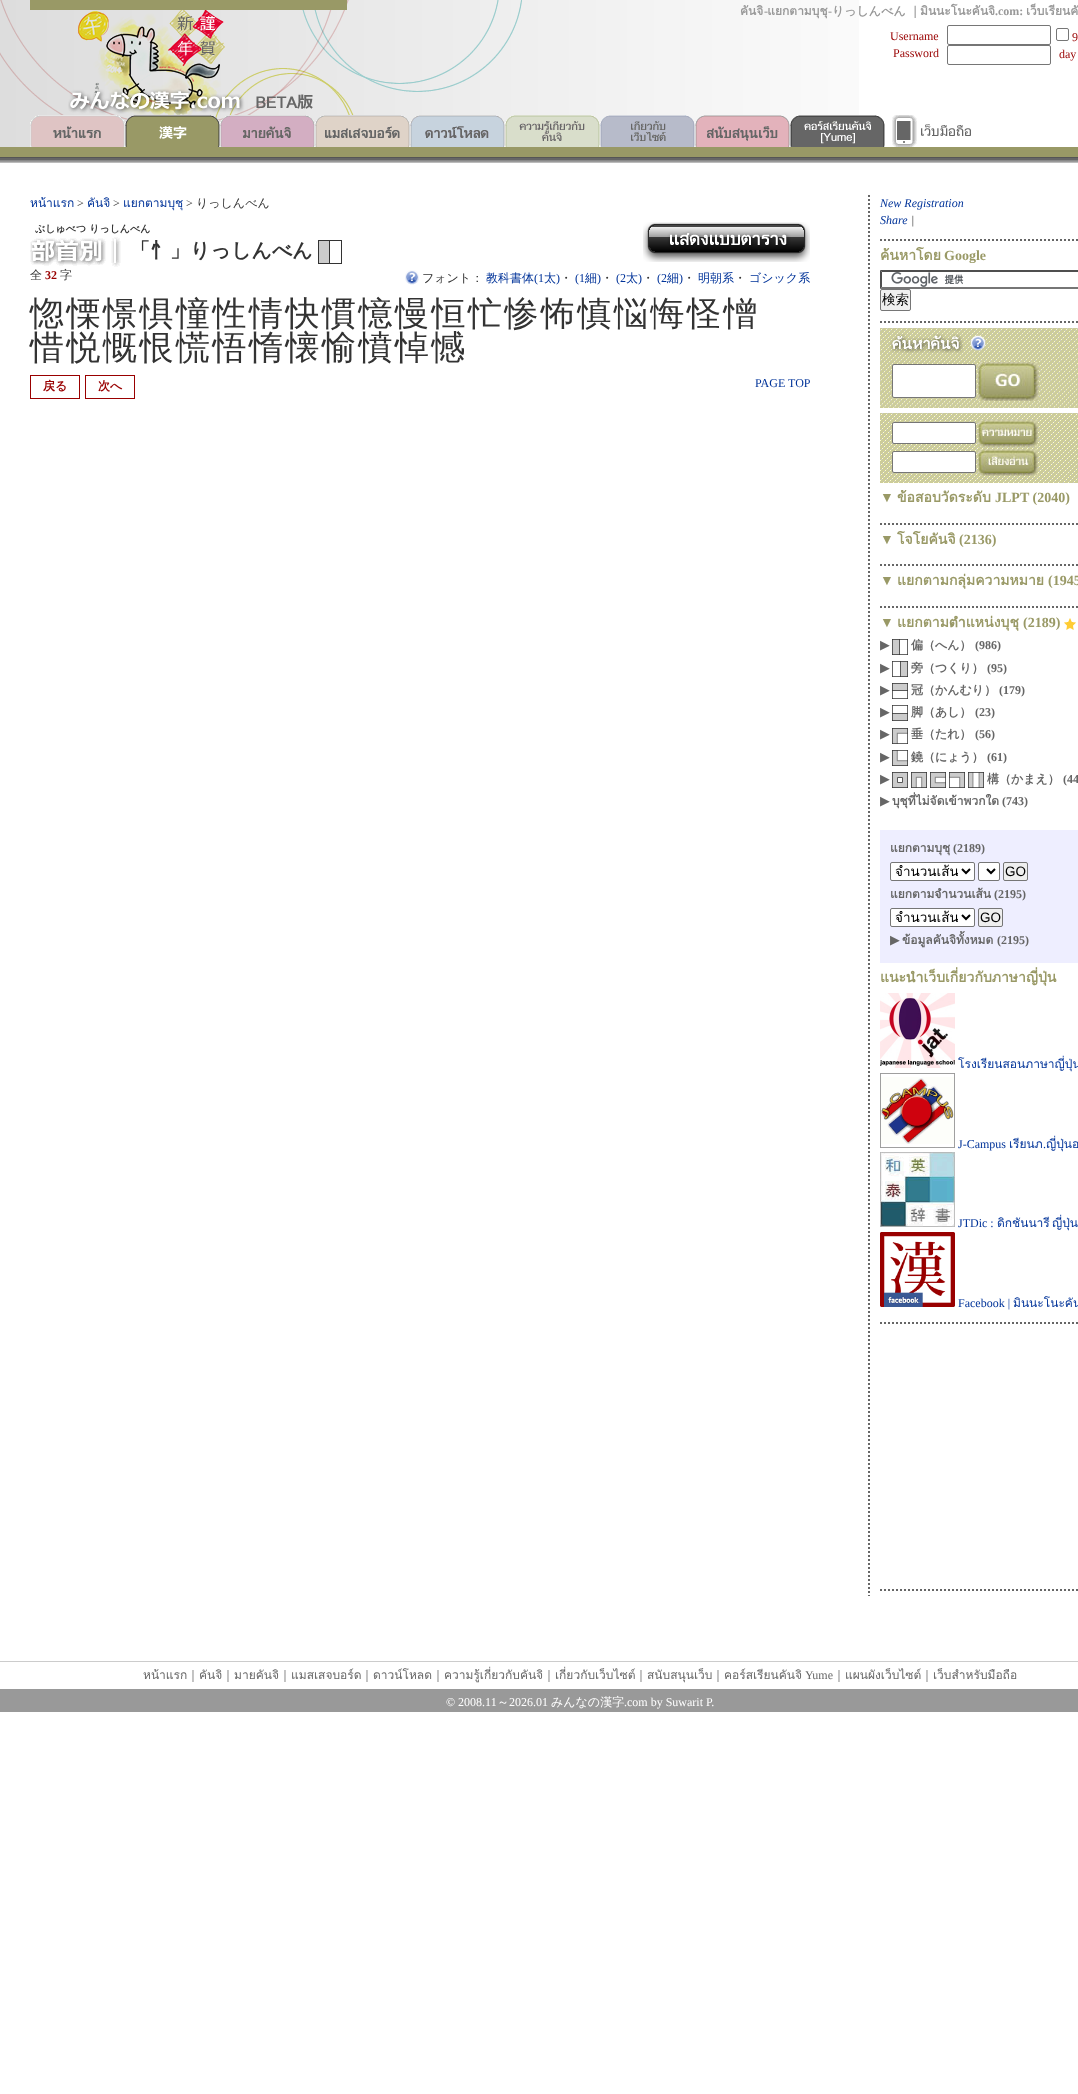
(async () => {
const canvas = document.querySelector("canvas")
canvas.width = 1078
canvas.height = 2094
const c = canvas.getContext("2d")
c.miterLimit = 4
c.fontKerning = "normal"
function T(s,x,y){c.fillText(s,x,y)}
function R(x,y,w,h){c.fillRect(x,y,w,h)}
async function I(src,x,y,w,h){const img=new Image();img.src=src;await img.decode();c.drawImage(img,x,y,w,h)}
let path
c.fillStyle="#fff"
R(0,0,1078,2094)
await I("1.png",0,0,859,147)
c.fillStyle="#996"
R(30,0,317,10)
await I("2.png",68,89,245,25)
c.font="bold 12px Loma"
c.fillStyle="#999"
T("คันจิ แยกตามบุชุ",740,15)
c.font="bold 12px WenQuanYi Zen Hei"
T("りっしんべん",832,15)
T("｜",909,15)
c.font="bold 12px Loma"
T("มินนะโนะคันจิ",920,15)
c.wordSpacing="-1px"
T("เว็บเรียนคั",1026,15)
c.wordSpacing="0px"
c.font="bold 12px Liberation Serif"
T("-",764,15)
T("-",828,15)
T(".com:",995,15)
c.font="12px Liberation Serif"
c.fillStyle="#900"
T("Username",890,40)
T("Password",893,57)
c.beginPath()
c.roundRect(947.5,25.5,103,19,1.5)
c.strokeStyle="#767676"
c.stroke()
c.beginPath()
c.roundRect(947.5,45.5,103,19,1.5)
c.stroke()
c.beginPath()
c.roundRect(1056.5,28.5,12,12,1.5)
c.stroke()
T("9",1072,41)
T("day",1059,58)
await I("3.png",0,147,1078,16)
await I("4.png",30,115,95,32)
await I("5.png",125,115,95,32)
await I("6.png",220,115,95,32)
await I("7.png",315,115,95,32)
await I("8.png",410,115,95,32)
await I("9.png",505,115,95,32)
await I("10.png",600,115,95,32)
await I("11.png",695,115,95,32)
await I("12.png",790,115,95,32)
await I("13.png",892,115,79,32)
c.font="12px Loma"
c.fillStyle="#039"
T("หน้าแรก",30,207)
c.font="12px Liberation Serif"
c.fillStyle="#333"
T(">",77,207)
c.font="12px Loma"
c.fillStyle="#039"
T("คันจิ",87,207)
c.font="12px Liberation Serif"
c.fillStyle="#333"
T(">",113,207)
c.font="12px Loma"
c.fillStyle="#039"
T("แยกตามบุชุ",123,207)
c.font="12px Liberation Serif"
c.fillStyle="#333"
T(">",186,207)
c.font="500 12px WenQuanYi Zen Hei"
T("りっしんべん",196,207)
c.font="bold 10px WenQuanYi Zen Hei"
T("ぶしゅべつ りっしんべん",35,232)
await I("14.png",643,222,167,40)
await I("15.png",30,237,91,30)
c.font="bold 20px WenQuanYi Zen Hei"
T("「忄」りっしんべん",130,257)
await I("16.png",318,240,24,24)
c.font="500 12px WenQuanYi Zen Hei"
T("全",30,279)
c.font="bold 12px Liberation Serif"
c.fillStyle="#900"
T("32",45,279)
c.font="500 12px WenQuanYi Zen Hei"
c.fillStyle="#333"
T("字",60,279)
await I("17.png",405,270,14,15)
T("フォント：",422,282)
c.fillStyle="#039"
T("教科書体",486,282)
c.font="12px Liberation Serif"
T("(1",534,282)
c.font="500 12px WenQuanYi Zen Hei"
T("太",544,282)
c.font="12px Liberation Serif"
T(")",556,282)
c.font="500 12px WenQuanYi Zen Hei"
c.fillStyle="#333"
T("・",560,282)
c.font="12px Liberation Serif"
c.fillStyle="#039"
T("(1",575,282)
c.font="500 12px WenQuanYi Zen Hei"
T("細",585,282)
c.font="12px Liberation Serif"
T(")",597,282)
c.font="500 12px WenQuanYi Zen Hei"
c.fillStyle="#333"
T("・",601,282)
c.font="12px Liberation Serif"
c.fillStyle="#039"
T("(2",616,282)
c.font="500 12px WenQuanYi Zen Hei"
T("太",626,282)
c.font="12px Liberation Serif"
T(")",638,282)
c.font="500 12px WenQuanYi Zen Hei"
c.fillStyle="#333"
T("・",642,282)
c.font="12px Liberation Serif"
c.fillStyle="#039"
T("(2",657,282)
c.font="500 12px WenQuanYi Zen Hei"
T("細",667,282)
c.font="12px Liberation Serif"
T(")",679,282)
c.font="500 12px WenQuanYi Zen Hei"
c.fillStyle="#333"
T("・",683,282)
c.fillStyle="#039"
T("明朝系",698,282)
c.fillStyle="#333"
T("・",734,282)
c.fillStyle="#039"
T("ゴシック系",749,282)
c.letterSpacing="2.5px"
c.font="500 34px WenQuanYi Zen Hei"
c.fillStyle="#333"
T("惚慄憬惧憧性情快慣憶慢恒忙惨怖慎悩悔怪憎",30,325)
T("惜悦慨恨慌悟惰懐愉憤悼憾",30,359)
c.strokeStyle="#900"
c.strokeRect(30.5,375.5,49,23)
c.letterSpacing="0px"
c.font="bold 12px WenQuanYi Zen Hei"
c.fillStyle="#900"
T("戻る",43,390)
c.strokeRect(85.5,375.5,49,23)
T("次へ",98,390)
c.font="12px Liberation Serif"
c.fillStyle="#039"
T("PAGE TOP",755,387)
path = new Path2D("M869 195v1401")
c.strokeStyle="#666"
c.lineWidth=2
c.setLineDash([2,2])
c.stroke(path)
path = new Path2D("M880 240h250")
c.stroke(path)
c.font="italic 12px Liberation Serif"
T("New Registration",880,207)
T("Share",880,224)
c.fillStyle="#333"
T("|",911,224)
path = new Path2D("M880 322h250")
c.stroke(path)
c.font="bold 14px Loma"
c.fillStyle="#996"
T("ค้นหาโดย",880,260)
c.font="bold 14px Liberation Serif"
T("Google",944,260)
await I("18.png",891,272,73,15)
c.fillStyle="#4f4f4f"
path = new Path2D("M880 270h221l-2 2h-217z")
c.fill(path)
c.fillStyle="#767676"
path = new Path2D("M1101 289h-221l2-2h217z")
c.fill(path)
c.fillStyle="#4f4f4f"
path = new Path2D("M880 289v-19l2 2v15z")
c.fill(path)
c.fillStyle="#efefef"
c.beginPath()
c.roundRect(880.5,289.5,30,21,1.5)
c.fill()
c.strokeStyle="#767676"
c.lineWidth=1
c.setLineDash([])
c.stroke()
c.font="500 13.5px WenQuanYi Zen Hei"
c.fillStyle="#000"
T("検索",882,304)
await I("19.png",880,328,198,80)
await I("20.png",890,334,73,19)
await I("21.png",970,335,16,16)
c.fillStyle="#fff"
c.beginPath()
c.roundRect(892.5,364.5,83,33,1.5)
c.fill()
c.stroke()
await I("22.png",978,362,61,39)
await I("23.png",880,413,198,70)
c.beginPath()
c.roundRect(892.5,422.5,83,21,1.5)
c.fill()
c.stroke()
await I("24.png",978,420,60,27)
c.beginPath()
c.roundRect(892.5,451.5,83,21,1.5)
c.fill()
c.stroke()
await I("25.png",978,449,60,27)
path = new Path2D("M880 524h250")
c.strokeStyle="#666"
c.lineWidth=2
c.setLineDash([2,2])
c.stroke(path)
c.font="bold 14px Liberation Serif"
c.fillStyle="#996"
T("▼",880,502)
c.font="bold 14px Loma"
T("ข้อสอบวัดระดับ",897,502)
c.font="bold 14px Liberation Serif"
T("JLPT (2040)",995,502)
path = new Path2D("M880 565h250")
c.stroke(path)
T("▼",880,544)
c.font="bold 14px Loma"
T("โจโยคันจิ",897,544)
c.font="bold 14px Liberation Serif"
T("(2136)",959,544)
path = new Path2D("M880 607h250")
c.stroke(path)
T("▼",880,585)
c.font="bold 14px Loma"
T("แยกตามกลุ่มความหมาย",897,585)
c.font="bold 14px Liberation Serif"
T("(1945",1048,585)
T("▼",880,627)
c.font="bold 14px Loma"
T("แยกตามตำแหน่งบุชุ",897,627)
c.font="bold 14px Liberation Serif"
T("(2189)",1023,627)
await I("26.png",1064,618,12,12)
c.font="bold 12px DejaVu Sans"
c.fillStyle="#666"
T("▶",880,649)
await I("27.png",892,639,16,16)
c.font="bold 12px WenQuanYi Zen Hei"
T("偏（へん）",911,649)
c.font="bold 12px Liberation Serif"
T("(986)",975,649)
c.font="bold 12px DejaVu Sans"
T("▶",880,672)
await I("28.png",892,661,16,16)
c.font="bold 12px WenQuanYi Zen Hei"
T("旁（つくり）",911,672)
c.font="bold 12px Liberation Serif"
T("(95)",987,672)
c.font="bold 12px DejaVu Sans"
T("▶",880,694)
await I("29.png",892,683,16,16)
c.font="bold 12px WenQuanYi Zen Hei"
T("冠（かんむり）",911,694)
c.font="bold 12px Liberation Serif"
T("(179)",999,694)
c.font="bold 12px DejaVu Sans"
T("▶",880,716)
await I("30.png",892,705,16,16)
c.font="bold 12px WenQuanYi Zen Hei"
T("脚（あし）",911,716)
c.font="bold 12px Liberation Serif"
T("(23)",975,716)
c.font="bold 12px DejaVu Sans"
T("▶",880,738)
await I("31.png",892,728,16,16)
c.font="bold 12px WenQuanYi Zen Hei"
T("垂（たれ）",911,738)
c.font="bold 12px Liberation Serif"
T("(56)",975,738)
c.font="bold 12px DejaVu Sans"
T("▶",880,761)
await I("32.png",892,750,16,16)
c.font="bold 12px WenQuanYi Zen Hei"
T("鐃（にょう）",911,761)
c.font="bold 12px Liberation Serif"
T("(61)",987,761)
c.font="bold 12px DejaVu Sans"
T("▶",880,783)
await I("33.png",892,772,16,16)
await I("34.png",911,772,16,16)
await I("35.png",930,772,16,16)
await I("36.png",949,772,16,16)
await I("37.png",968,772,16,16)
c.font="bold 12px WenQuanYi Zen Hei"
T("構（かまえ）",987,783)
c.font="bold 12px Liberation Serif"
T("(44",1063,783)
c.font="bold 12px DejaVu Sans"
T("▶",880,805)
c.font="bold 12px Loma"
T("บุชุที่ไม่จัดเข้าพวกใด",892,805)
c.font="bold 12px Liberation Serif"
T("(743)",1002,805)
c.fillStyle="#eef"
R(880,830,198,133)
c.font="bold 12px Loma"
c.fillStyle="#666"
T("แยกตามบุชุ",890,852)
c.font="bold 12px Liberation Serif"
T("(2189)",953,852)
c.fillStyle="#fff"
c.beginPath()
c.roundRect(890.5,862.5,84,18,1.5)
c.fill()
c.strokeStyle="#767676"
c.lineWidth=1
c.setLineDash([])
c.stroke()
path = new Path2D("M962 869l4 4l4-4")
c.strokeStyle="#000"
c.lineWidth=2
c.stroke(path)
c.save()
c.beginPath()
c.rect(895,863,63,17)
c.clip()
c.font="13.5px Loma"
c.fillStyle="#000"
T("จำนวนเส้น",895,876)
c.restore()
c.beginPath()
c.roundRect(978.5,862.5,21,18,1.5)
c.fill()
c.strokeStyle="#767676"
c.lineWidth=1
c.stroke()
path = new Path2D("M987 869l4 4l4-4")
c.strokeStyle="#000"
c.lineWidth=2
c.stroke(path)
c.fillStyle="#efefef"
c.beginPath()
c.roundRect(1003.5,862.5,24,18,1.5)
c.fill()
c.strokeStyle="#767676"
c.lineWidth=1
c.stroke()
c.font="13.5px Liberation Sans"
c.fillStyle="#000"
T("GO",1005,876)
c.font="bold 12px Loma"
c.fillStyle="#666"
T("แยกตามจำนวนเส้น",890,898)
c.font="bold 12px Liberation Serif"
T("(2195)",994,898)
c.fillStyle="#fff"
c.beginPath()
c.roundRect(890.5,908.5,84,18,1.5)
c.fill()
c.stroke()
path = new Path2D("M962 915l4 4l4-4")
c.strokeStyle="#000"
c.lineWidth=2
c.stroke(path)
c.save()
c.beginPath()
c.rect(895,909,63,17)
c.clip()
c.font="13.5px Loma"
c.fillStyle="#000"
T("จำนวนเส้น",895,922)
c.restore()
c.fillStyle="#efefef"
c.beginPath()
c.roundRect(978.5,908.5,24,18,1.5)
c.fill()
c.strokeStyle="#767676"
c.lineWidth=1
c.stroke()
c.font="13.5px Liberation Sans"
c.fillStyle="#000"
T("GO",980,922)
c.font="bold 12px DejaVu Sans"
c.fillStyle="#666"
T("▶",890,944)
c.font="bold 12px Loma"
T("ข้อมูลคันจิทั้งหมด",902,944)
c.font="bold 12px Liberation Serif"
T("(2195)",997,944)
path = new Path2D("M880 1323h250")
c.strokeStyle="#666"
c.lineWidth=2
c.setLineDash([2,2])
c.stroke(path)
c.font="bold 14px Loma"
c.fillStyle="#996"
T("แนะนำเว็บเกี่ยวกับภาษาญี่ปุ่น",880,982)
await I("38.png",880,993,75,75)
c.font="12px Loma"
c.fillStyle="#039"
T("โรงเรียนสอนภาษาญี่ปุ่น",958,1068)
await I("39.png",880,1073,75,75)
c.font="12px Liberation Serif"
T("J-Campus",958,1148)
c.font="12px Loma"
T("เรียนภ",1009,1148)
c.font="12px Liberation Serif"
T(".",1043,1148)
c.font="12px Loma"
T("ญี่ปุ่นอ",1046,1148)
await I("40.png",880,1152,75,75)
c.font="12px Liberation Serif"
T("JTDic :",958,1227)
c.font="12px Loma"
T("ดิกชันนารี",997,1227)
T("ญี่ปุ่น",1052,1227)
await I("41.png",880,1232,75,75)
c.font="12px Liberation Serif"
T("Facebook |",958,1307)
c.font="12px Loma"
T("มินนะโนะคัน",1013,1307)
path = new Path2D("M880 1590h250")
c.stroke(path)
c.fillStyle="#999"
R(0,1689,1078,23)
c.fillStyle="#ccc"
R(0,1661,1078,1)
c.fillStyle="#666"
T("หน้าแรก",143,1679)
c.font="500 12px WenQuanYi Zen Hei"
T("｜",187,1679)
c.font="12px Loma"
T("คันจิ",199,1679)
c.font="500 12px WenQuanYi Zen Hei"
T("｜",222,1679)
c.font="12px Loma"
T("มายคันจิ",234,1679)
c.font="500 12px WenQuanYi Zen Hei"
T("｜",279,1679)
c.font="12px Loma"
T("แมสเสจบอร์ด",291,1679)
c.font="500 12px WenQuanYi Zen Hei"
T("｜",361,1679)
c.font="12px Loma"
T("ดาวน์โหลด",373,1679)
c.font="500 12px WenQuanYi Zen Hei"
T("｜",432,1679)
c.font="12px Loma"
T("ความรู้เกี่ยวกับคันจิ",444,1679)
c.font="500 12px WenQuanYi Zen Hei"
T("｜",543,1679)
c.font="12px Loma"
T("เกี่ยวกับเว็บไซต์",555,1679)
c.font="500 12px WenQuanYi Zen Hei"
T("｜",635,1679)
c.font="12px Loma"
T("สนับสนุนเว็บ",647,1679)
c.font="500 12px WenQuanYi Zen Hei"
T("｜",712,1679)
c.font="12px Loma"
T("คอร์สเรียนคันจิ",724,1679)
c.font="12px Liberation Serif"
T("Yume",805,1679)
c.font="500 12px WenQuanYi Zen Hei"
T("｜",833,1679)
c.font="12px Loma"
T("แผนผังเว็บไซต์",845,1679)
c.font="500 12px WenQuanYi Zen Hei"
T("｜",921,1679)
c.font="12px Loma"
T("เว็บสำหรับมือถือ",933,1679)
c.font="12px Liberation Serif"
c.fillStyle="#fff"
T("© 2008.11",446,1706)
c.font="500 12px WenQuanYi Zen Hei"
T("～",497,1706)
c.font="12px Liberation Serif"
T("2026.01",509,1706)
c.font="500 12px WenQuanYi Zen Hei"
T("みんなの漢字",551,1706)
c.font="12px Liberation Serif"
T(".com by Suwarit P.",624,1706)
})()
